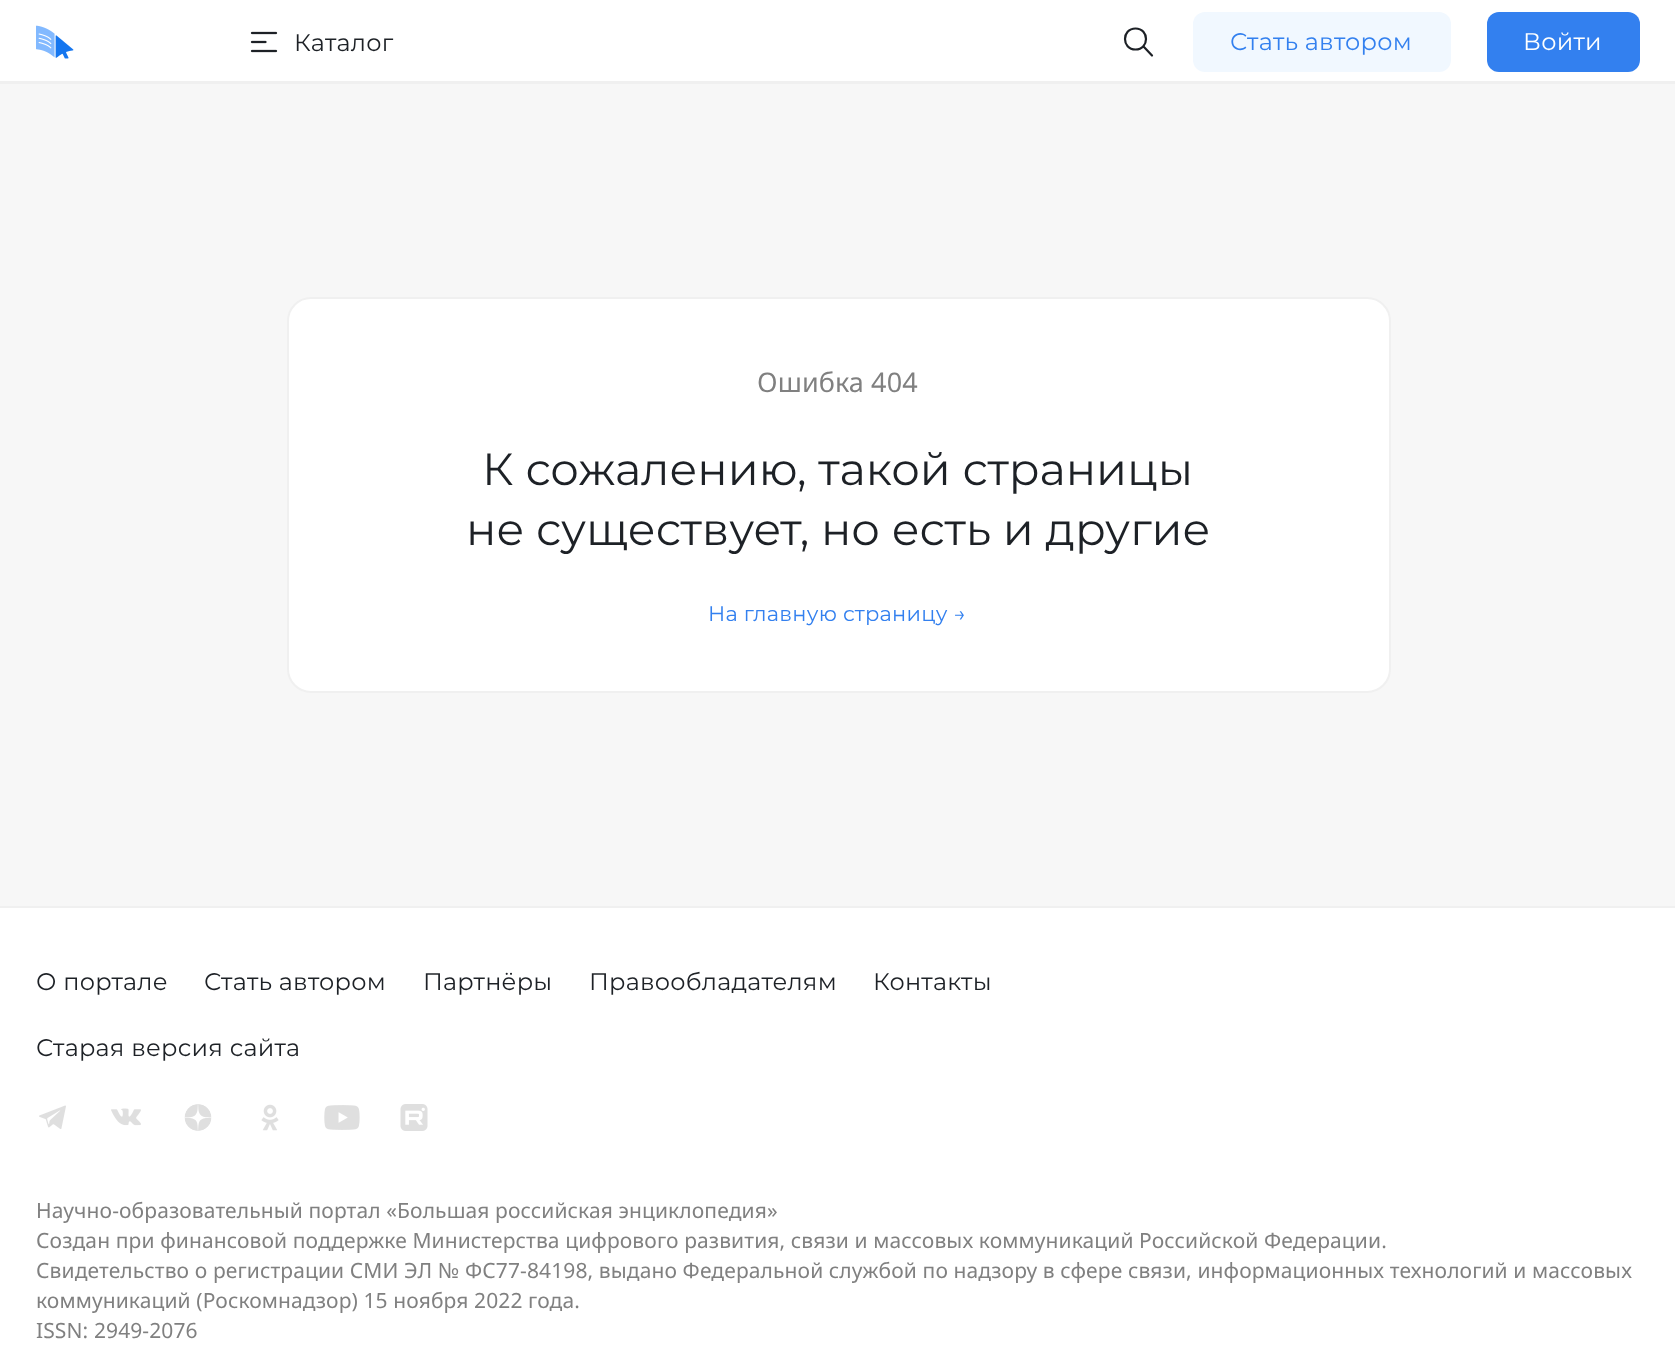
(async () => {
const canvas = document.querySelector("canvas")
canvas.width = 1675
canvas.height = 1370
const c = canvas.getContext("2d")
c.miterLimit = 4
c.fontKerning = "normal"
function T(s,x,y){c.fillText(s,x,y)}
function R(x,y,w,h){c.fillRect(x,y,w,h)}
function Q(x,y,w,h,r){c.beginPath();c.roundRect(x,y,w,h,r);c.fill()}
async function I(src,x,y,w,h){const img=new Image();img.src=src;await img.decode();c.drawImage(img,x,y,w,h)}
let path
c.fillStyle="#f7f7f7"
R(0,0,1675,1370)
c.fillStyle="#fff"
R(0,0,1675,81)
c.fillStyle="#f0f0f0"
R(0,81,1675,3)
await I("1.png",36,25,38,34)
await I("2.png",250,31,28,22)
c.letterSpacing="0.25px"
c.font="24px Montserrat"
c.fillStyle="#1d2126"
T("Каталог",294,51)
path = new Path2D("M1135.5 49.5c14 0 14-21 0-21c-14 0-14 21 0 21zm16.5 6l-8-8.5")
c.strokeStyle="#1d2126"
c.lineWidth=2.2
c.lineCap="round"
c.lineJoin="round"
c.stroke(path)
c.fillStyle="#f1f8ff"
Q(1193,12,258,60,12)
c.fillStyle="#3380ef"
T("Стать автором",1230,50)
Q(1487,12,153,60,12)
c.fillStyle="#fff"
T("Войти",1523,50)
c.beginPath()
c.roundRect(288,298,1102,394,23)
c.fill()
c.strokeStyle="#f0f0f0"
c.lineWidth=2
c.lineJoin="miter"
c.stroke()
c.letterSpacing="0.1px"
c.font="27px Noto Sans"
c.fillStyle="#808080"
T("Ошибка 404",757,392)
c.letterSpacing="0px"
c.font="45px Montserrat"
c.fillStyle="#1d2126"
T("К сожалению, такой страницы",482,485)
T("не существует, но есть и другие",466,545)
c.letterSpacing="0.25px"
c.font="21px Montserrat"
c.fillStyle="#3380ef"
T("На главную страницу →",708,621)
c.fillStyle="#fff"
R(0,908,1675,462)
c.fillStyle="#f0f0f0"
R(0,906,1675,2)
c.font="24px Montserrat"
c.fillStyle="#1d2126"
T("О портале",36,990)
T("Стать автором",204,990)
T("Партнёры",423,990)
T("Правообладателям",589,990)
T("Контакты",873,990)
T("Старая версия сайта",36,1056)
await I("3.png",39,1105,27,24)
await I("4.png",111,1108,30,18)
await I("5.png",184,1104,28,27)
await I("6.png",261,1104,18,27)
await I("7.png",324,1105,36,25)
await I("8.png",400,1104,28,27)
c.letterSpacing="0.11px"
c.font="21px Noto Sans"
c.fillStyle="#808080"
T("Научно-образовательный портал «Большая российская энциклопедия»",36,1218)
T("Создан при финансовой поддержке Министерства цифрового развития, связи и массовых коммуникаций Российской Федерации.",36,1248)
T("Свидетельство о регистрации СМИ ЭЛ № ФС77-84198, выдано Федеральной службой по надзору в сфере связи, информационных технологий и массовых",36,1278)
T("коммуникаций (Роскомнадзор) 15 ноября 2022 года.",36,1308)
T("ISSN: 2949-2076",36,1338)
})()
